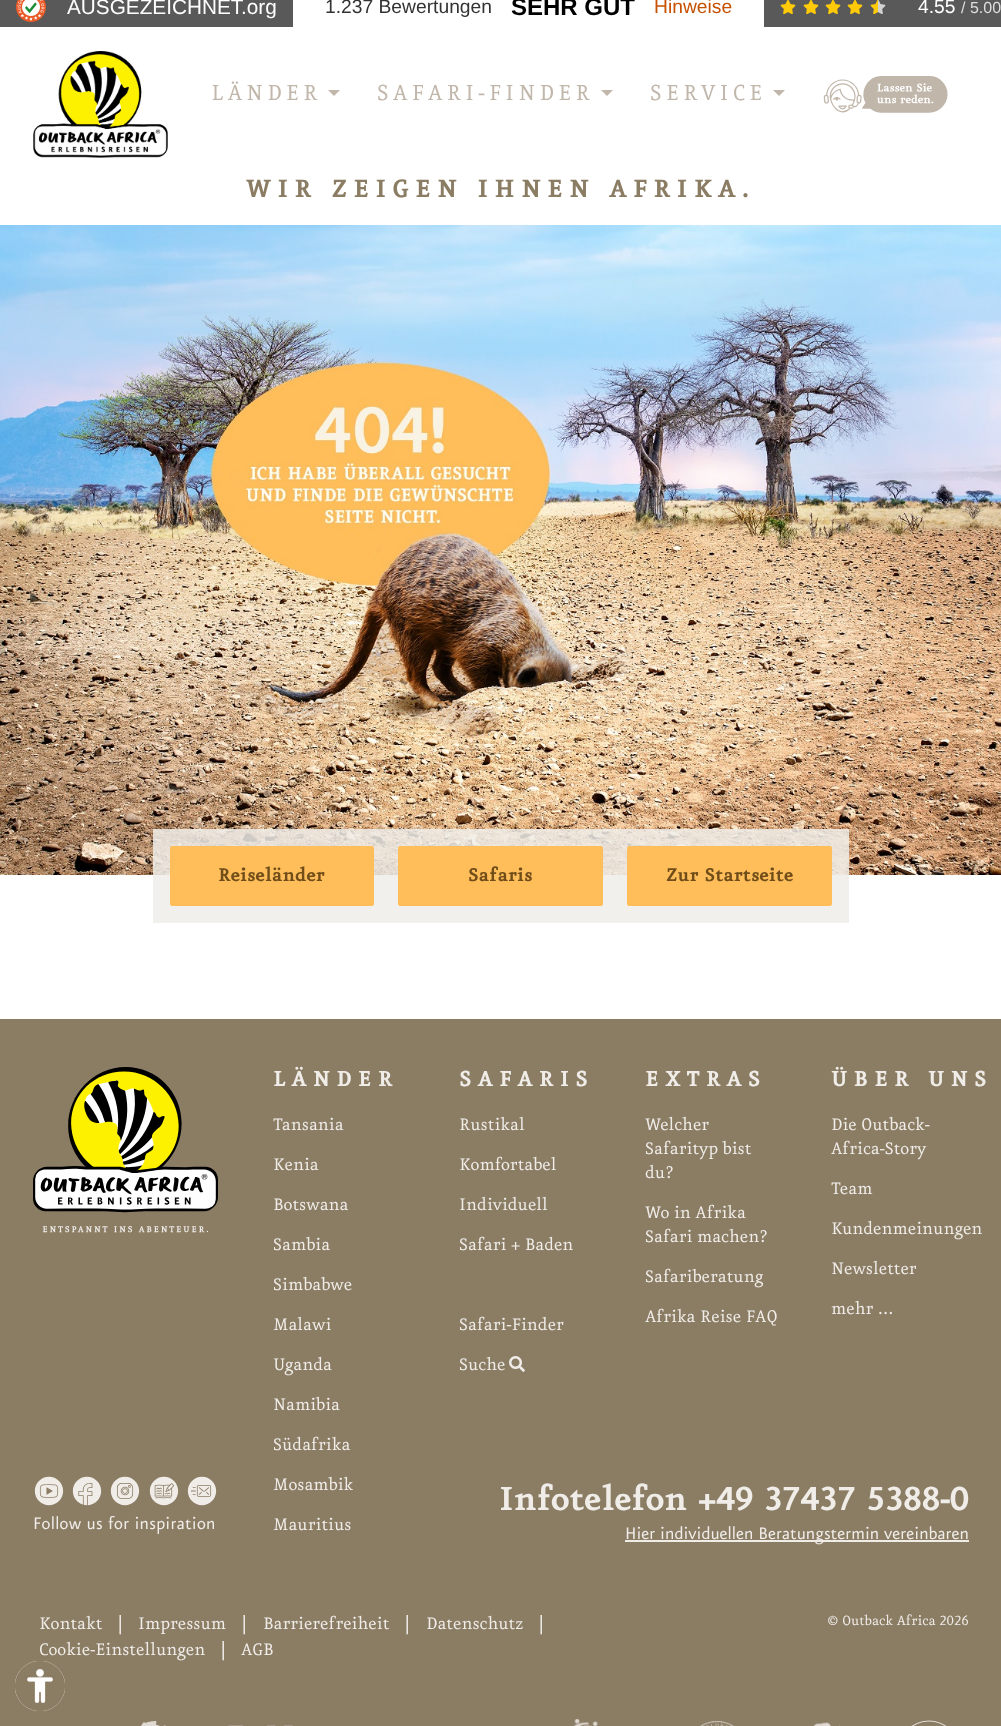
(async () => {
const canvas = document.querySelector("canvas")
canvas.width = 1001
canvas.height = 1726
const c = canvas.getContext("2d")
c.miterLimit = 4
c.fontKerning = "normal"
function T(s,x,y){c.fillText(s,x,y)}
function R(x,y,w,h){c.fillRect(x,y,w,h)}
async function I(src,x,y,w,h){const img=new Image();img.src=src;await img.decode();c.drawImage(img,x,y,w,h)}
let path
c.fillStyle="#fff"
R(0,0,1001,1726)
c.fillStyle="#595959"
R(0,0,1001,27)
await I("1.png",16,0,30,22)
c.font="20.75px Liberation Sans"
c.fillStyle="#fff"
T("AUSGEZEICHNET",67,14)
T(".org",241,14)
R(293,0,471,27)
c.font="19.25px Liberation Sans"
c.fillStyle="#333"
T("1.237 Bewertungen",325,13)
c.font="bold 24px Liberation Sans"
c.fillStyle="#000"
T("SEHR GUT",511,15)
c.font="19.25px Liberation Sans"
c.fillStyle="#c65102"
T("Hinweise",654,13)
await I("2.png",780,0,16,14)
await I("2.png",803,0,16,14)
await I("2.png",825,0,16,14)
await I("2.png",847,0,16,14)
await I("3.png",870,0,16,14)
c.fillStyle="#fff"
T("4.55",918,13)
c.font="16px Liberation Sans"
c.fillStyle="#dedede"
T("/ 5.00",961,13)
await I("4.png",33,51,135,107)
c.letterSpacing="4px"
c.font="26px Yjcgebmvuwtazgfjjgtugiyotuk"
c.fillStyle="#c1b6aa"
T("LÄNDER",211,100)
path = new Path2D("M328 90h12l-6 6z")
c.fill(path)
T("SAFARI-FINDER",377,100)
path = new Path2D("M601 90h12l-6 6z")
c.fill(path)
T("SERVICE",650,100)
path = new Path2D("M773 90h12l-6 6z")
c.fill(path)
await I("5.png",823,76,125,37)
c.letterSpacing="6px"
c.font="bold 30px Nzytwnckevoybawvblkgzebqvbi"
c.fillStyle="#8b7c64"
T("WIR ZEIGEN IHNEN AFRIKA.",246,197)
await I("6.png",0,225,1001,650)
c.fillStyle="#f0ede9d9"
R(153,829,696,94)
c.fillStyle="#ffbe5a"
c.beginPath()
c.roundRect(170.5,846.5,203,59,1.5)
c.fill()
c.strokeStyle="#ffbe5a"
c.stroke()
c.letterSpacing="0px"
c.font="bold 22px Nzytwnckevoybawvblkgzebqvbi"
c.fillStyle="#704d19"
T("Reiseländer",218,881)
c.fillStyle="#ffbe5a"
c.beginPath()
c.roundRect(398.5,846.5,204,59,1.5)
c.fill()
c.stroke()
c.fillStyle="#704d19"
T("Safaris",468,881)
c.fillStyle="#ffbe5a"
c.beginPath()
c.roundRect(627.5,846.5,204,59,1.5)
c.fill()
c.stroke()
c.fillStyle="#704d19"
T("Zur Startseite",666,881)
c.fillStyle="#8b7c64"
R(0,1019,1001,707)
c.letterSpacing="6px"
c.font="bold 26px Nzytwnckevoybawvblkgzebqvbi"
c.fillStyle="#f0ede9"
T("LÄNDER",273,1086)
c.letterSpacing="0px"
c.font="20px Yjcgebmvuwtazgfjjgtugiyotuk"
T("Tansania",273,1130)
T("Kenia",273,1170)
T("Botswana",273,1210)
T("Sambia",273,1250)
T("Simbabwe",273,1290)
T("Malawi",273,1330)
T("Uganda",273,1370)
T("Namibia",273,1410)
T("Südafrika",273,1450)
T("Mosambik",273,1490)
T("Mauritius",273,1530)
c.letterSpacing="6px"
c.font="bold 26px Nzytwnckevoybawvblkgzebqvbi"
T("SAFARIS",459,1086)
c.letterSpacing="0px"
c.font="20px Yjcgebmvuwtazgfjjgtugiyotuk"
T("Rustikal",459,1130)
T("Komfortabel",459,1170)
T("Individuell",459,1210)
T("Safari + Baden",459,1250)
T("Safari-Finder",459,1330)
T("Suche",459,1370)
await I("7.png",509,1356,16,16)
c.letterSpacing="6px"
c.font="bold 26px Nzytwnckevoybawvblkgzebqvbi"
T("EXTRAS",645,1086)
c.letterSpacing="0px"
c.font="20px Yjcgebmvuwtazgfjjgtugiyotuk"
T("Welcher",645,1130)
T("Safarityp bist",645,1154)
T("du?",645,1178)
T("Wo in Afrika",645,1218)
T("Safari machen?",645,1242)
T("Safariberatung",645,1282)
T("Afrika Reise FAQ",645,1322)
c.letterSpacing="6px"
c.font="bold 26px Nzytwnckevoybawvblkgzebqvbi"
T("ÜBER UNS",831,1086)
c.letterSpacing="0px"
c.font="20px Yjcgebmvuwtazgfjjgtugiyotuk"
T("Die Outback-",831,1130)
T("Africa-Story",831,1154)
T("Team",831,1194)
T("Kundenmeinungen",831,1234)
T("Newsletter",831,1274)
T("mehr ...",831,1314)
await I("8.png",33,1067,185,166)
await I("9.png",34,1476,30,30)
await I("10.png",72,1476,30,30)
await I("11.png",110,1476,30,30)
await I("12.png",149,1476,30,30)
await I("13.png",187,1476,30,30)
c.letterSpacing="0.25px"
c.font="20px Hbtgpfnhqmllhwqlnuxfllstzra"
T("Follow us for inspiration",33,1529)
c.letterSpacing="0px"
c.font="bold 40px Nzytwnckevoybawvblkgzebqvbi"
T("Infotelefon +49 37437 5388-0",499,1510)
R(625,1540,344,2)
c.font="20px Hbtgpfnhqmllhwqlnuxfllstzra"
T("Hier individuellen Beratungstermin vereinbaren",625,1539)
c.font="20px Yjcgebmvuwtazgfjjgtugiyotuk"
T("Kontakt",39,1629)
T("|",118,1629)
T("Impressum",138,1629)
T("|",242,1629)
T("Barrierefreiheit",263,1629)
T("|",405,1629)
T("Datenschutz",426,1629)
T("|",539,1629)
T("Cookie-Einstellungen",39,1655)
T("|",221,1655)
T("AGB",241,1655)
c.font="16px Yjcgebmvuwtazgfjjgtugiyotuk"
T("© Outback Africa 2026",827,1625)
await I("14.png",141,1721,26,5)
await I("15.png",228,1725,65,1)
await I("16.png",573,1719,25,7)
await I("17.png",700,1721,34,5)
await I("18.png",813,1722,27,4)
await I("19.png",911,1720,36,6)
await I("20.png",15,1661,50,50)
})()
